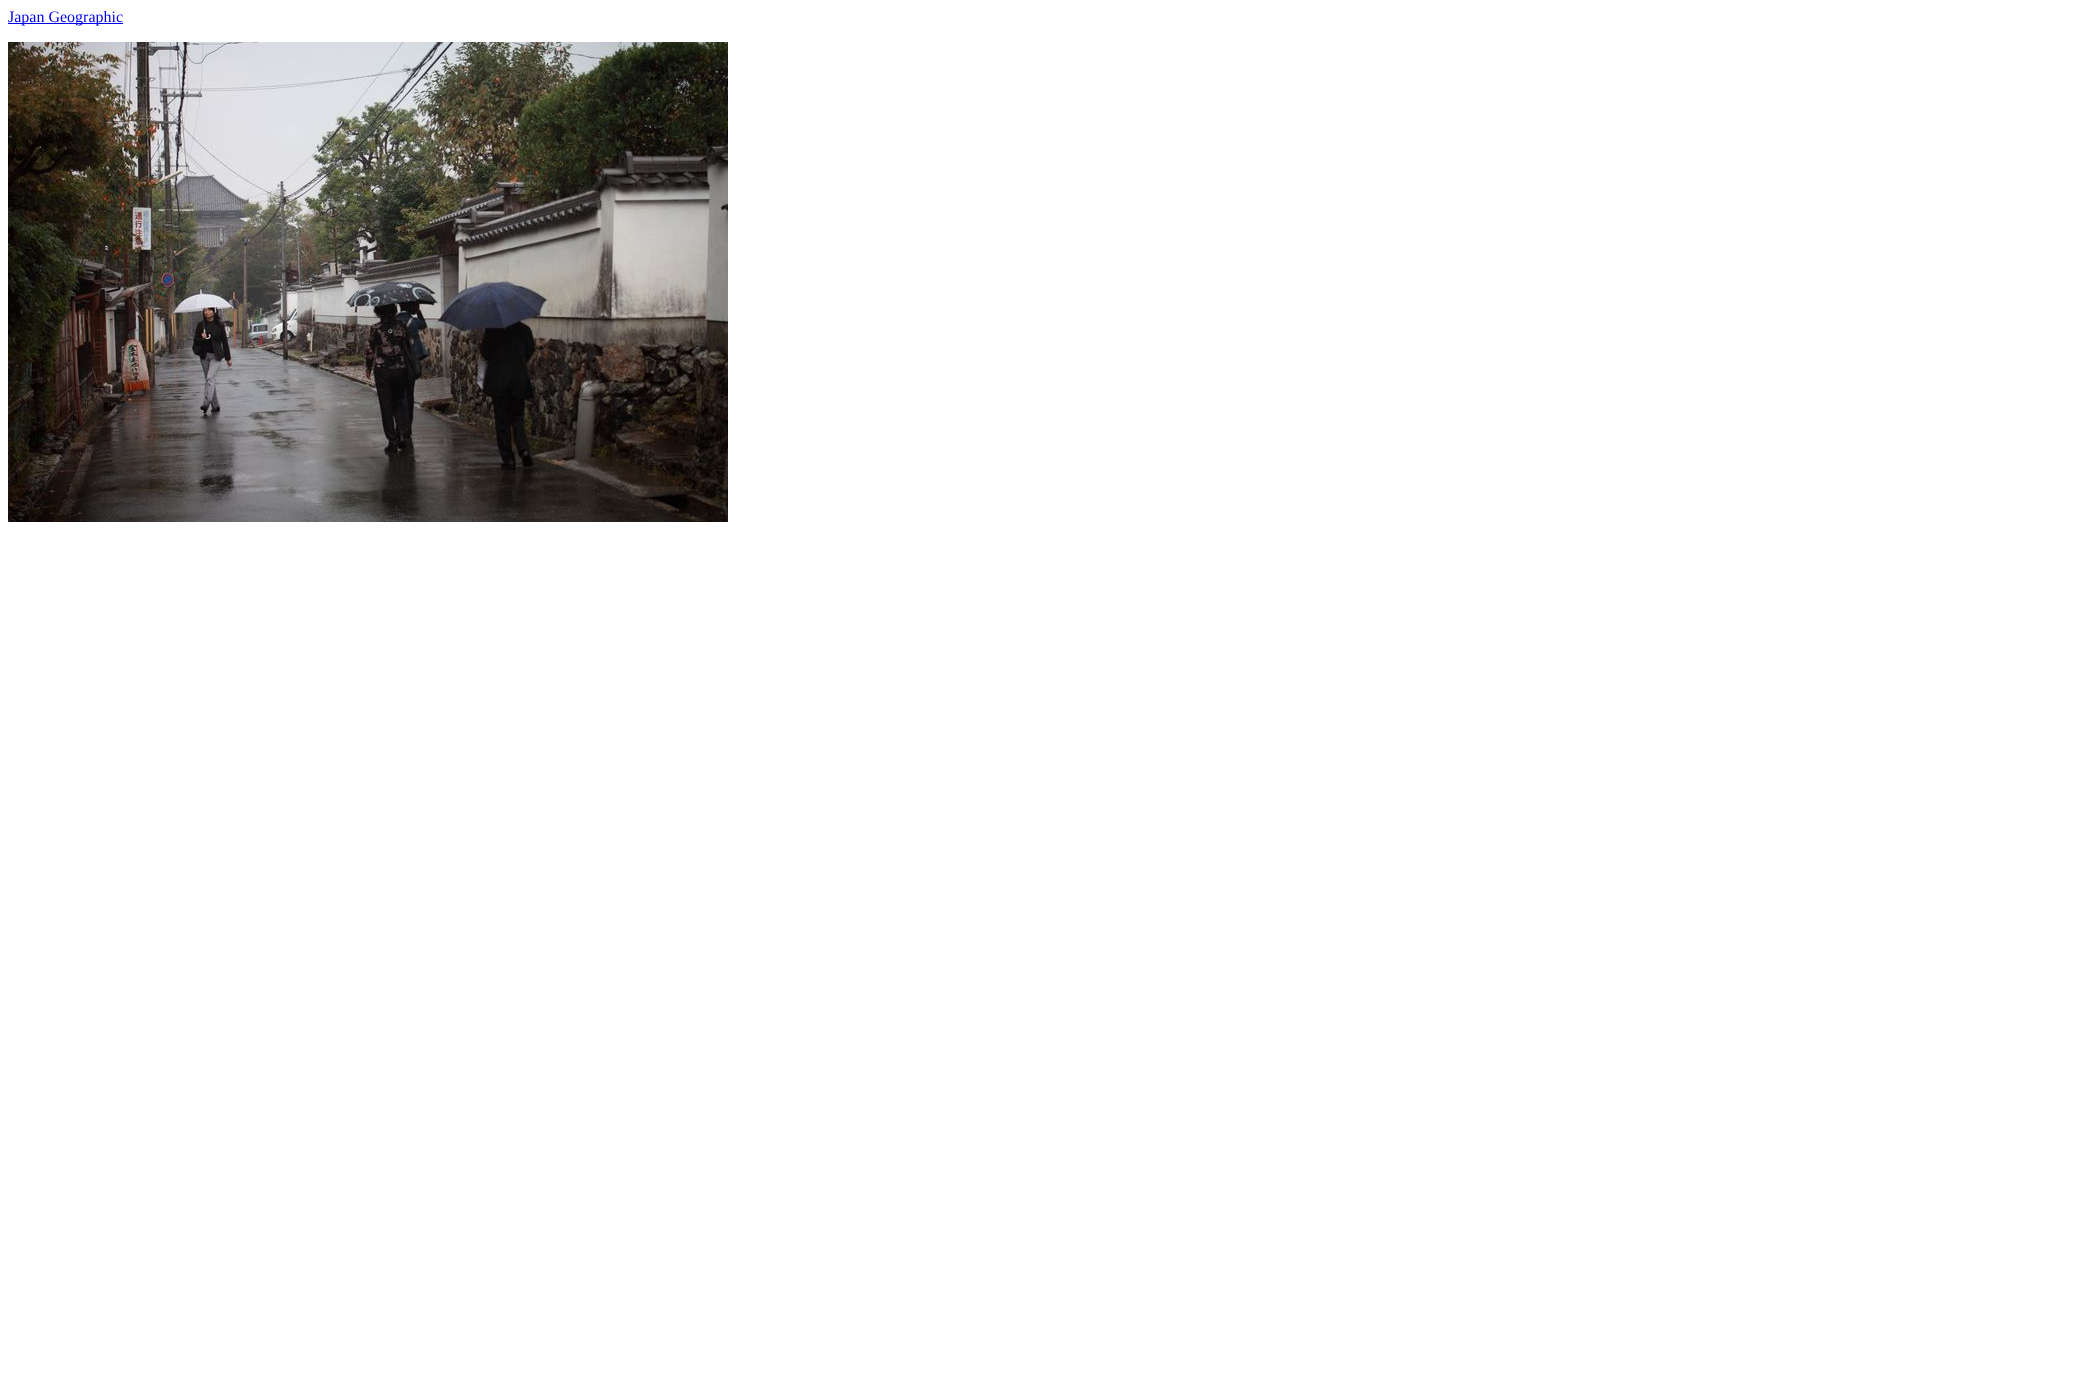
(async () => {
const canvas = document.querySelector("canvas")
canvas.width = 2093
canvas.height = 1400
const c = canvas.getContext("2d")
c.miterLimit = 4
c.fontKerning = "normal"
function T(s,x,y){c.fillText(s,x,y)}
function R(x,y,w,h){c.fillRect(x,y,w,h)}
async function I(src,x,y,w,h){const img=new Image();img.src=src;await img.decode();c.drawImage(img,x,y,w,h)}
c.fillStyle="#fff"
R(0,0,2093,1400)
c.fillStyle="#00e"
R(8,23,115,1)
c.font="16px Liberation Serif"
T("Japan Geographic",8,22)
await I("1.png",8,42,720,480)
})()
